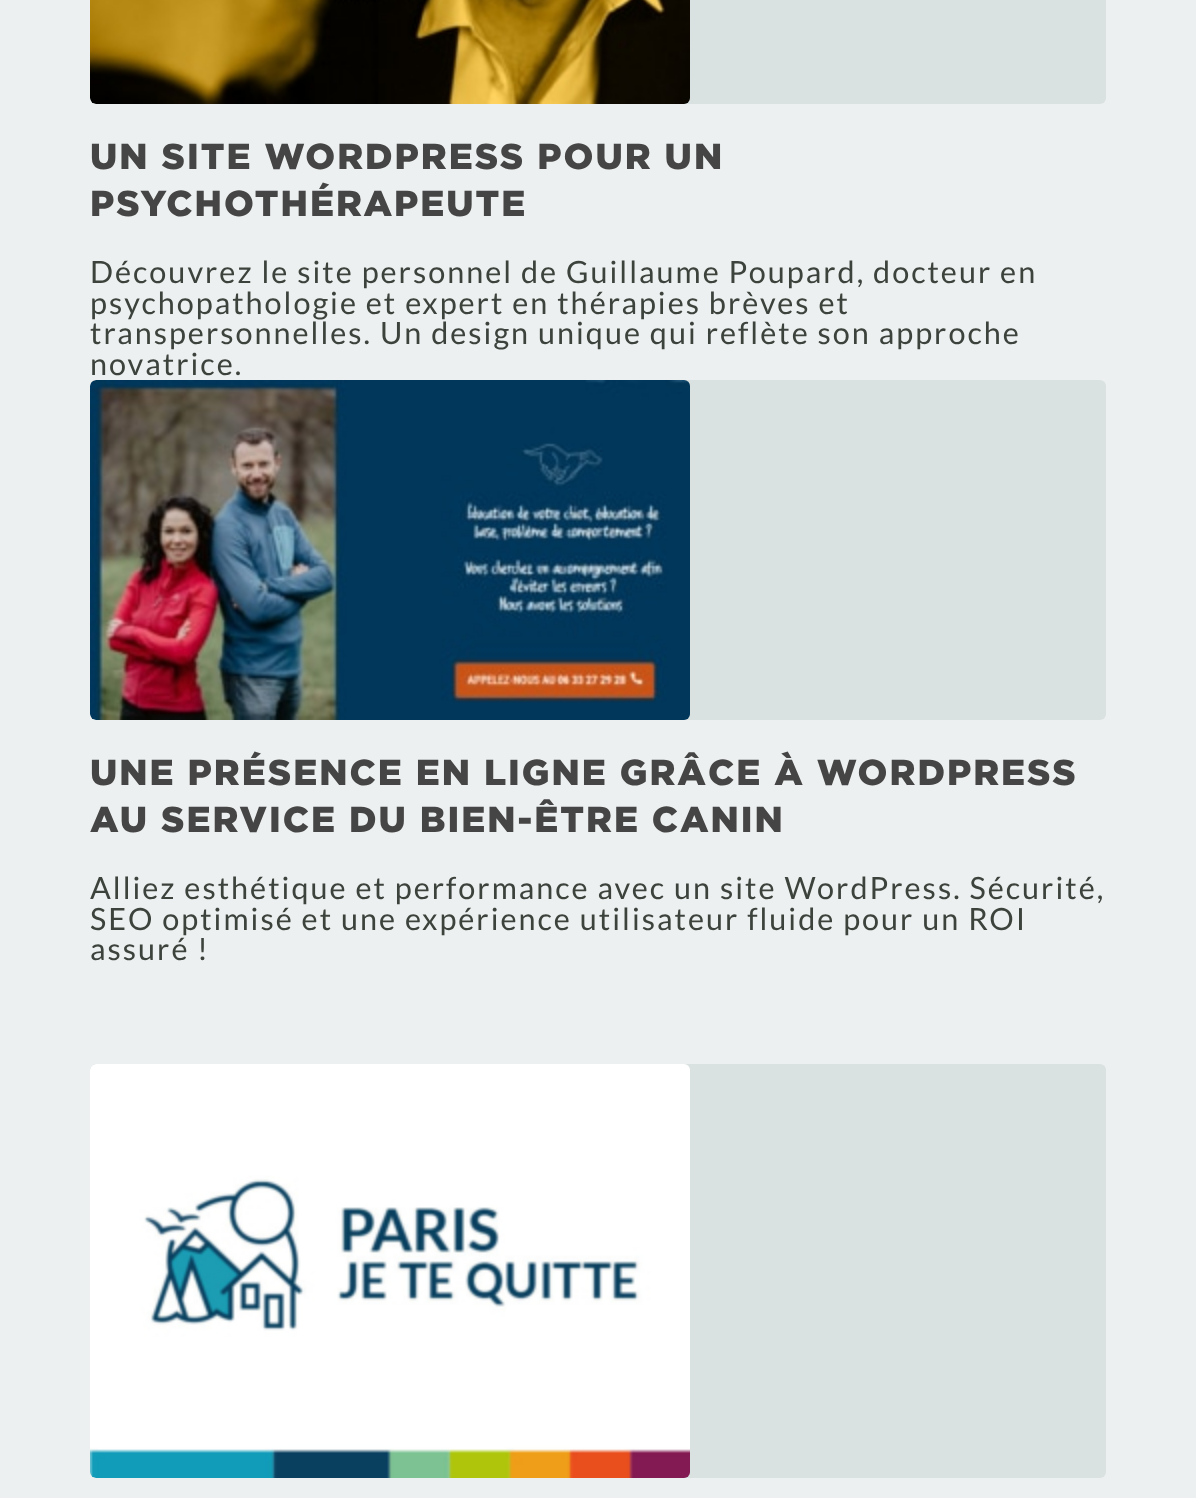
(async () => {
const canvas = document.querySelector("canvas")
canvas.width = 1196
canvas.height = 1498
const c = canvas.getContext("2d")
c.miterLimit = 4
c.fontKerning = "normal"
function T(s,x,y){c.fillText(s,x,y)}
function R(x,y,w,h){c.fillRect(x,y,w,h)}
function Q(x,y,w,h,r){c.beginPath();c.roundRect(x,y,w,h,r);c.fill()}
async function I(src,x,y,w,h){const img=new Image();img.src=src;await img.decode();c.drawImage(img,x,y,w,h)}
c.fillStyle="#edf0f0"
R(0,0,1196,1498)
c.fillStyle="#dae1e1"
Q(90,-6,1016,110,6)
await I("1.png",90,0,600,104)
c.letterSpacing="2px"
c.font="900 36px Gotham"
c.fillStyle="#464545"
T("UN SITE WORDPRESS POUR UN",90,169)
T("PSYCHOTHÉRAPEUTE",90,216)
c.font="30.6px Lato"
c.fillStyle="#3c423c"
T("Découvrez le site personnel de Guillaume Poupard, docteur en",90,283)
T("psychopathologie et expert en thérapies brèves et",90,314)
T("transpersonnelles. Un design unique qui reflète son approche",90,344)
T("novatrice.",90,375)
c.fillStyle="#dae1e1"
Q(90,380,1016,340,6)
await I("2.png",90,380,600,340)
c.font="900 36px Gotham"
c.fillStyle="#464545"
T("UNE PRÉSENCE EN LIGNE GRÂCE À WORDPRESS",90,785)
T("AU SERVICE DU BIEN-ÊTRE CANIN",90,832)
c.font="30.6px Lato"
c.fillStyle="#3c423c"
T("Alliez esthétique et performance avec un site WordPress. Sécurité,",90,899)
T("SEO optimisé et une expérience utilisateur fluide pour un ROI",90,930)
T("assuré !",90,960)
c.fillStyle="#dae1e1"
Q(90,1064,1016,414,6)
await I("3.png",90,1064,600,414)
})()
